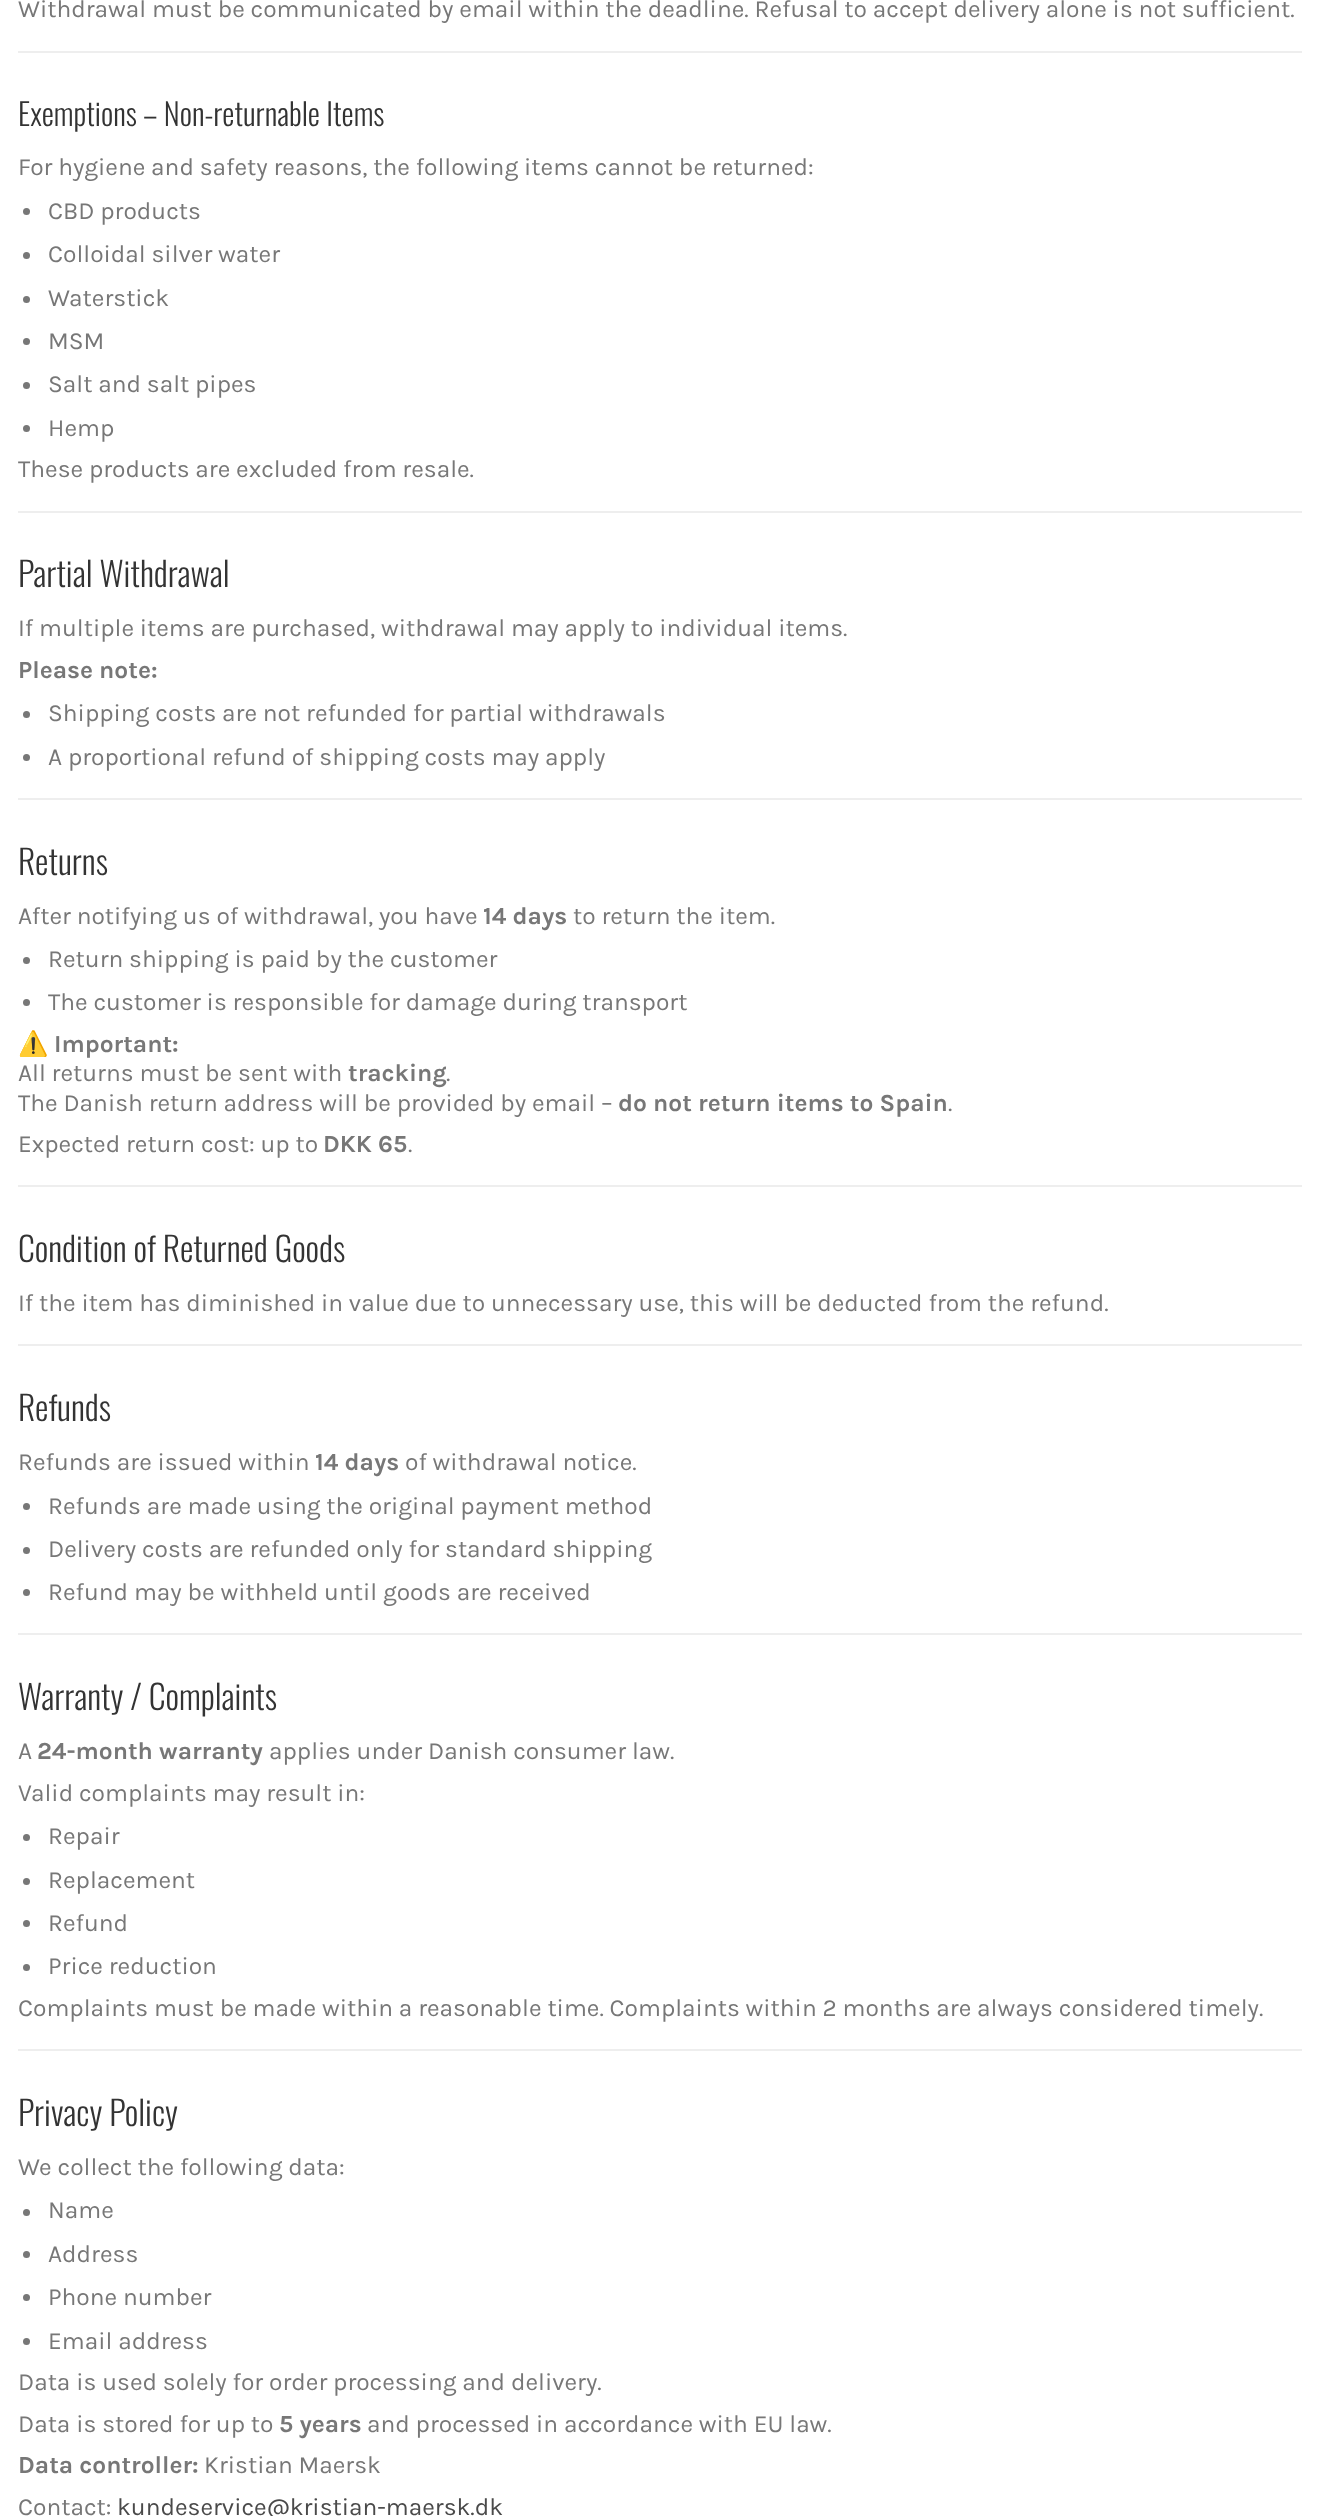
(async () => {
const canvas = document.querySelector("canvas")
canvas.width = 1318
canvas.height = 2516
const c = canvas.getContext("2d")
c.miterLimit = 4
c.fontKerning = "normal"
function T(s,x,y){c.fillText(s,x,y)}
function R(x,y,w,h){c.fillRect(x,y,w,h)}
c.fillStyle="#fff"
R(0,0,1318,2516)
c.font="24.5px Karla"
c.fillStyle="#777"
T("Withdrawal must be communicated by email within the deadline. Refusal to accept delivery alone is not sufficient.",18,17)
c.fillStyle="#eee"
R(18,51,1284,2)
c.font="300 30.6px Oswald"
c.fillStyle="#333"
T("Exemptions – Non-returnable Items",18,126)
c.font="24.5px Karla"
c.fillStyle="#777"
T("For hygiene and safety reasons, the following items cannot be returned:",18,175)
c.beginPath()
c.arc(26.5,211.5,3.5,0,7)
c.fill()
T("CBD products",48,219)
c.beginPath()
c.arc(26.5,255.5,3.5,0,7)
c.fill()
T("Colloidal silver water",48,262)
c.beginPath()
c.arc(26.5,299.5,3.5,0,7)
c.fill()
T("Waterstick",48,306)
c.beginPath()
c.arc(26.5,341.5,3.5,0,7)
c.fill()
T("MSM",48,349)
c.beginPath()
c.arc(26.5,385.5,3.5,0,7)
c.fill()
T("Salt and salt pipes",48,392)
c.beginPath()
c.arc(26.5,428.5,3.5,0,7)
c.fill()
T("Hemp",48,436)
T("These products are excluded from resale.",18,477)
c.fillStyle="#eee"
R(18,511,1284,2)
c.font="300 33.75px Oswald"
c.fillStyle="#333"
T("Partial Withdrawal",18,587)
c.font="24.5px Karla"
c.fillStyle="#777"
T("If multiple items are purchased, withdrawal may apply to individual items.",18,636)
c.font="bold 24.5px Karla"
T("Please note:",18,678)
c.beginPath()
c.arc(26.5,714.5,3.5,0,7)
c.fill()
c.font="24.5px Karla"
T("Shipping costs are not refunded for partial withdrawals",48,721)
c.beginPath()
c.arc(26.5,757.5,3.5,0,7)
c.fill()
T("A proportional refund of shipping costs may apply",48,765)
c.fillStyle="#eee"
R(18,798,1284,2)
c.font="300 33.75px Oswald"
c.fillStyle="#333"
T("Returns",18,875)
c.font="24.5px Karla"
c.fillStyle="#777"
T("After notifying us of withdrawal, you have",18,924)
c.font="bold 24.5px Karla"
T("14 days",483,924)
c.font="24.5px Karla"
T("to return the item.",573,924)
c.beginPath()
c.arc(26.5,960.5,3.5,0,7)
c.fill()
T("Return shipping is paid by the customer",48,967)
c.beginPath()
c.arc(26.5,1002.5,3.5,0,7)
c.fill()
T("The customer is responsible for damage during transport",48,1010)
c.font="24.5px Noto Color Emoji"
T("⚠️",18,1052)
c.font="bold 24.5px Karla"
T("Important:",54,1052)
c.font="24.5px Karla"
T("All returns must be sent with",18,1081)
c.font="bold 24.5px Karla"
T("tracking",348,1081)
c.font="24.5px Karla"
T(".",446,1081)
T("The Danish return address will be provided by email –",18,1111)
c.font="bold 24.5px Karla"
T("do not return items to Spain",618,1111)
c.font="24.5px Karla"
T(".",948,1111)
T("Expected return cost: up to",18,1152)
c.font="bold 24.5px Karla"
T("DKK 65",323,1152)
c.font="24.5px Karla"
T(".",408,1152)
c.fillStyle="#eee"
R(18,1185,1284,2)
c.font="300 33.75px Oswald"
c.fillStyle="#333"
T("Condition of Returned Goods",18,1262)
c.font="24.5px Karla"
c.fillStyle="#777"
T("If the item has diminished in value due to unnecessary use, this will be deducted from the refund.",18,1311)
c.fillStyle="#eee"
R(18,1344,1284,2)
c.font="300 33.75px Oswald"
c.fillStyle="#333"
T("Refunds",18,1421)
c.font="24.5px Karla"
c.fillStyle="#777"
T("Refunds are issued within",18,1470)
c.font="bold 24.5px Karla"
T("14 days",315,1470)
c.font="24.5px Karla"
T("of withdrawal notice.",405,1470)
c.beginPath()
c.arc(26.5,1506.5,3.5,0,7)
c.fill()
T("Refunds are made using the original payment method",48,1514)
c.beginPath()
c.arc(26.5,1550.5,3.5,0,7)
c.fill()
T("Delivery costs are refunded only for standard shipping",48,1557)
c.beginPath()
c.arc(26.5,1592.5,3.5,0,7)
c.fill()
T("Refund may be withheld until goods are received",48,1600)
c.fillStyle="#eee"
R(18,1633,1284,2)
c.font="300 33.75px Oswald"
c.fillStyle="#333"
T("Warranty / Complaints",18,1710)
c.font="24.5px Karla"
c.fillStyle="#777"
T("A",18,1759)
c.font="bold 24.5px Karla"
T("24-month warranty",37,1759)
c.font="24.5px Karla"
T("applies under Danish consumer law.",269,1759)
T("Valid complaints may result in:",18,1801)
c.beginPath()
c.arc(26.5,1837.5,3.5,0,7)
c.fill()
T("Repair",48,1844)
c.beginPath()
c.arc(26.5,1881.5,3.5,0,7)
c.fill()
T("Replacement",48,1888)
c.beginPath()
c.arc(26.5,1923.5,3.5,0,7)
c.fill()
T("Refund",48,1931)
c.beginPath()
c.arc(26.5,1967.5,3.5,0,7)
c.fill()
T("Price reduction",48,1974)
T("Complaints must be made within a reasonable time. Complaints within 2 months are always considered timely.",18,2016)
c.fillStyle="#eee"
R(18,2049,1284,2)
c.font="300 33.75px Oswald"
c.fillStyle="#333"
T("Privacy Policy",18,2126)
c.font="24.5px Karla"
c.fillStyle="#777"
T("We collect the following data:",18,2175)
c.beginPath()
c.arc(26.5,2212.5,3.5,0,7)
c.fill()
T("Name",48,2218)
c.beginPath()
c.arc(26.5,2254.5,3.5,0,7)
c.fill()
T("Address",48,2262)
c.beginPath()
c.arc(26.5,2297.5,3.5,0,7)
c.fill()
T("Phone number",48,2305)
c.beginPath()
c.arc(26.5,2341.5,3.5,0,7)
c.fill()
T("Email address",48,2349)
T("Data is used solely for order processing and delivery.",18,2390)
T("Data is stored for up to",18,2432)
c.font="bold 24.5px Karla"
T("5 years",279,2432)
c.font="24.5px Karla"
T("and processed in accordance with EU law.",367,2432)
c.font="bold 24.5px Karla"
T("Data controller:",18,2473)
c.font="24.5px Karla"
T("Kristian Maersk",204,2473)
T("Contact:",18,2515)
c.fillStyle="#4a4a4a"
T("kundeservice@kristian-maersk.dk",117,2515)
})()
